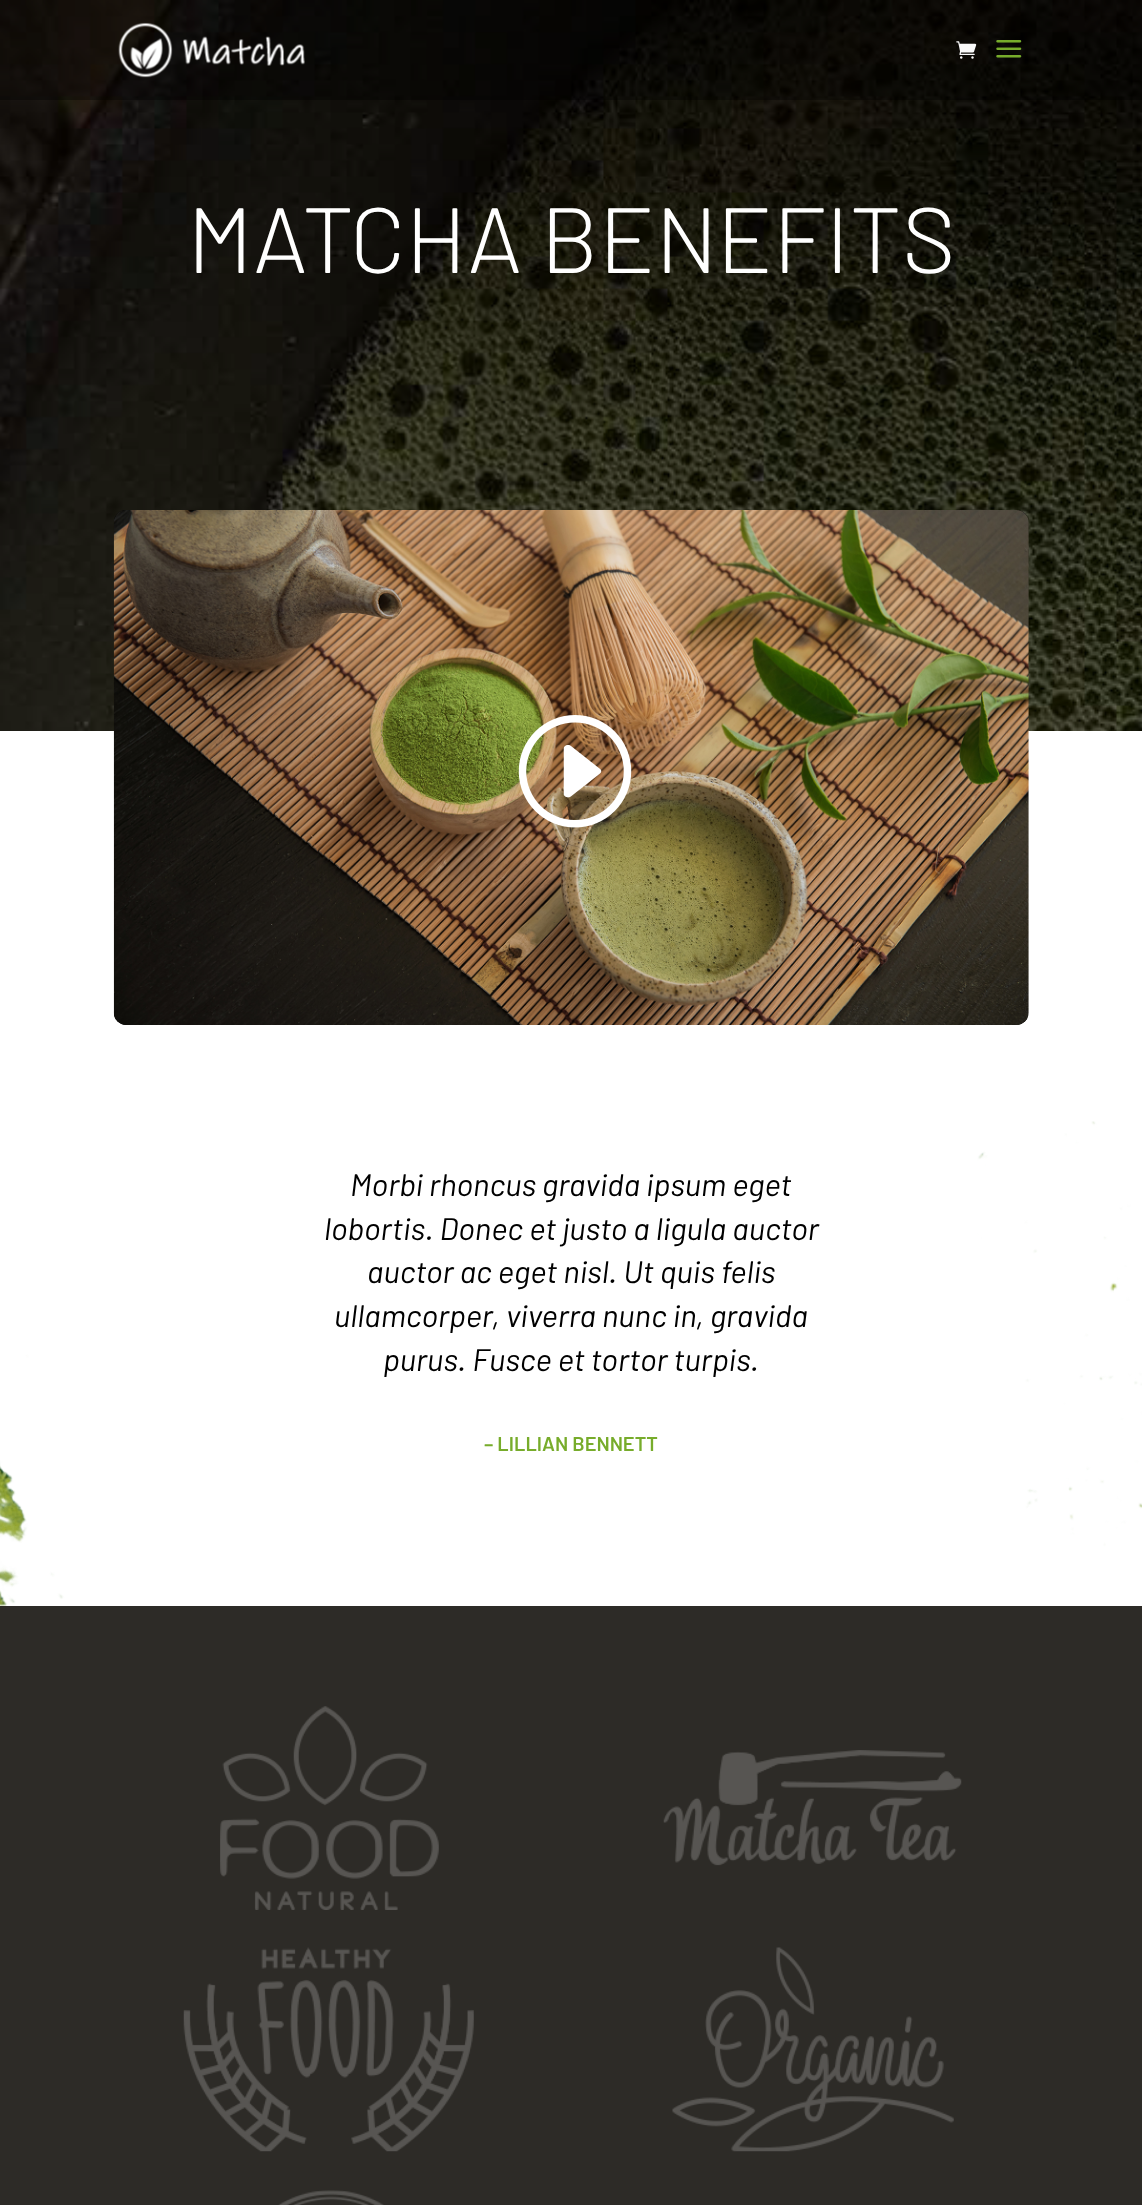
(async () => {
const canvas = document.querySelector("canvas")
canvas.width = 1142
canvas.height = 2205
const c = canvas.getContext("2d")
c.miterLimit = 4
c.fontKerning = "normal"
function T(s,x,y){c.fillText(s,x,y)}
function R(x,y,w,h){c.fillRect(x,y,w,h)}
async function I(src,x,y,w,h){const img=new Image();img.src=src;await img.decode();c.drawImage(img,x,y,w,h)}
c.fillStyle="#fff"
R(0,0,1142,2205)
await I("4.png",0,0,1142,731)
c.fillStyle="#00000059"
R(0,0,1142,100)
await I("1.png",118,22,187,56)
await I("2.png",956,41,21,18)
await I("3.png",996,40,26,18)
c.font="300 92.5px Barlow"
c.fillStyle="#fff"
T("MATCHA BENEFITS",187,273)
await I("5.png",0,1121,1142,485)
await I("8.png",114,510,914,515)
await I("6.png",113,510,916,515)
await I("7.png",518,715,114,113)
c.font="italic 31.25px Barlow"
c.fillStyle="#000"
T("Morbi rhoncus gravida ipsum eget",350,1196)
T("lobortis. Donec et justo a ligula auctor",324,1240)
T("auctor ac eget nisl. Ut quis felis",367,1283)
T("ullamcorper, viverra nunc in, gravida",334,1327)
T("purus. Fusce et tortor turpis.",383,1371)
c.font="600 20px Barlow"
c.fillStyle="#77ac2b"
T("– LILLIAN BENNETT",484,1451)
c.fillStyle="#2d2b27"
R(0,1606,1142,599)
await I("9.png",220,1706,219,204)
await I("10.png",663,1750,299,116)
await I("11.png",183,1947,291,205)
await I("12.png",672,1947,282,205)
await I("13.png",278,2190,106,15)
})()
